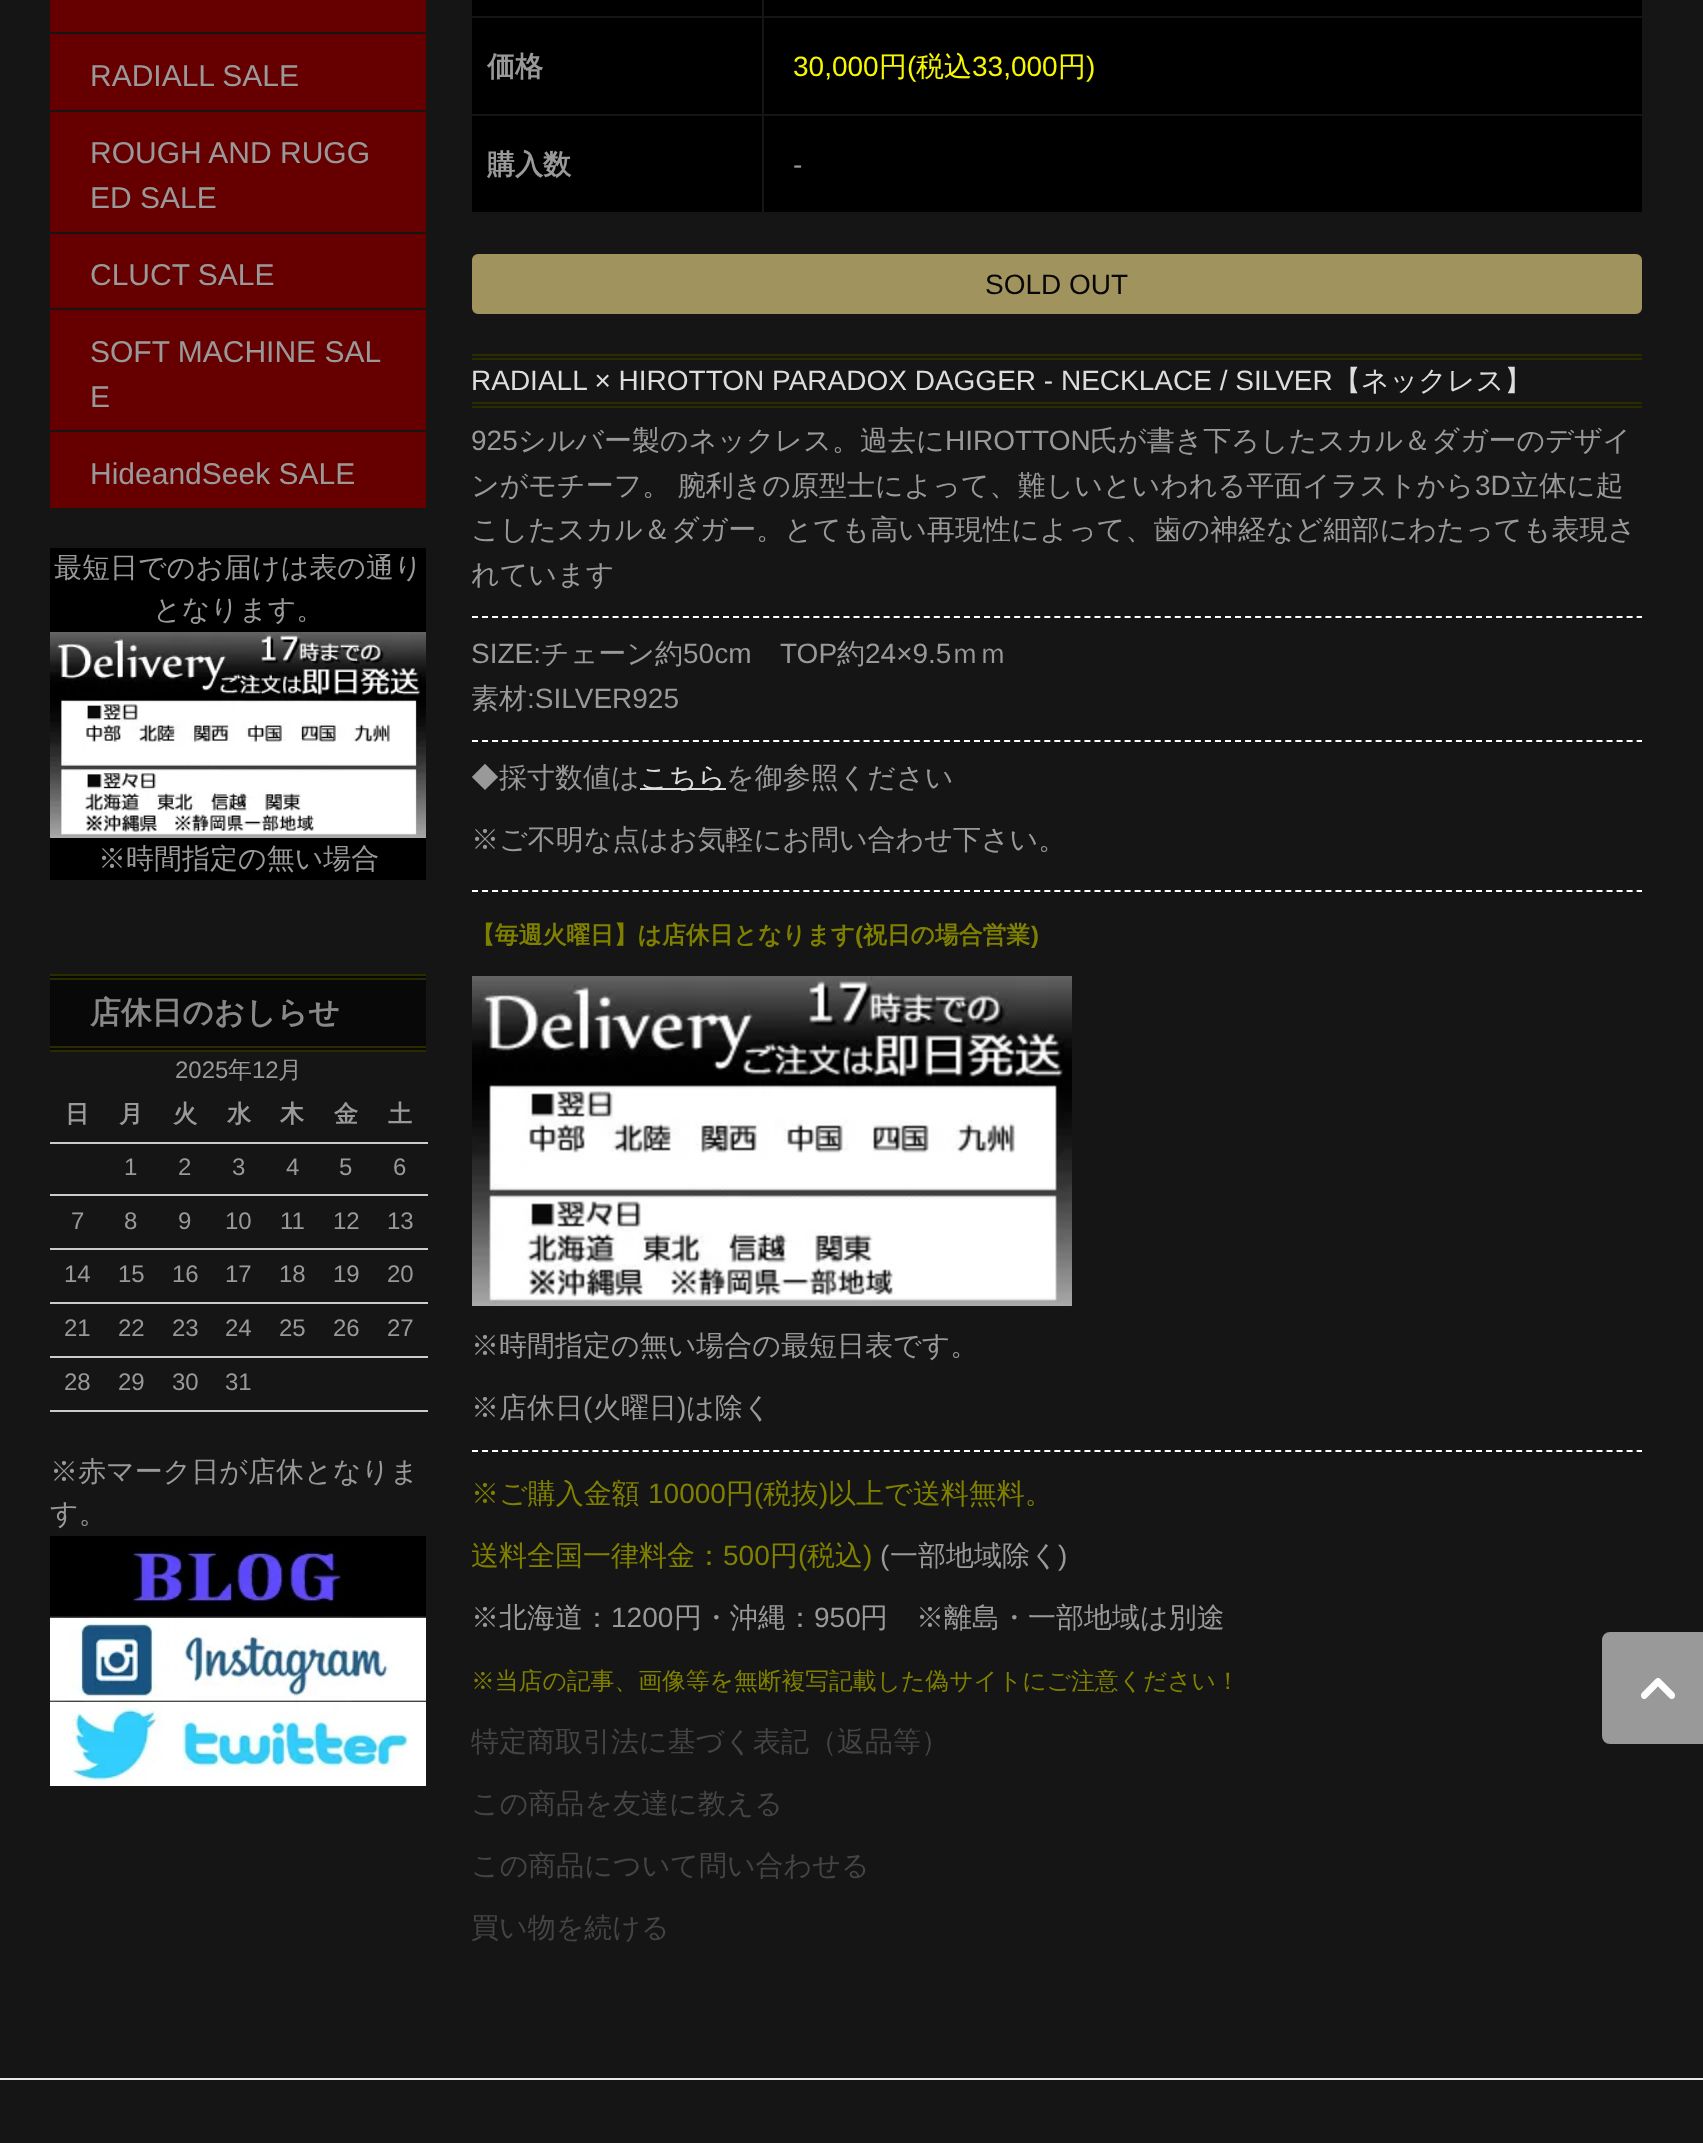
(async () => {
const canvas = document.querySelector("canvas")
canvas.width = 1703
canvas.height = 2143
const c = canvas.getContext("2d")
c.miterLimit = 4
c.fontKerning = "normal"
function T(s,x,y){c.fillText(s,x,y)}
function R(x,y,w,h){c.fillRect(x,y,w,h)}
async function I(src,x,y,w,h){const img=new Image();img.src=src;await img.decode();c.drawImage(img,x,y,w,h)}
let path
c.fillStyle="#151515"
R(0,0,1703,2143)
c.fillStyle="#600"
R(50,0,376,32)
R(50,34,376,76)
c.font="30px Liberation Sans"
c.fillStyle="#999"
T("RADIALL SALE",90,86)
c.fillStyle="#600"
R(50,112,376,120)
c.fillStyle="#999"
T("ROUGH AND RUGG",90,163)
T("ED SALE",90,208)
c.fillStyle="#600"
R(50,234,376,74)
c.fillStyle="#999"
T("CLUCT SALE",90,285)
c.fillStyle="#600"
R(50,310,376,120)
c.fillStyle="#999"
T("SOFT MACHINE SAL",90,362)
T("E",90,407)
c.fillStyle="#600"
R(50,432,376,76)
c.fillStyle="#999"
T("HideandSeek SALE",90,484)
c.fillStyle="#000"
R(50,548,376,332)
c.font="500 28px WenQuanYi Zen Hei"
c.fillStyle="#999"
T("最短日でのお届けは表の通り",54,577)
T("となります。",153,619)
await I("1.png",50,632,376,206)
T("※時間指定の無い場合",98,868)
c.fillStyle="#080808"
R(50,976,376,74)
c.fillStyle="#2b2b00"
R(50,974,376,2)
R(50,978,376,2)
R(50,1046,376,2)
R(50,1050,376,2)
c.font="bold 30.75px WenQuanYi Zen Hei"
c.fillStyle="#888"
T("店休日のおしらせ",90,1023)
c.font="24px Liberation Sans"
c.fillStyle="#999"
T("2025",175,1078)
c.font="500 24px WenQuanYi Zen Hei"
T("年",228,1078)
c.font="24px Liberation Sans"
T("12",252,1078)
c.font="500 24px WenQuanYi Zen Hei"
T("月",278,1078)
c.font="bold 24px WenQuanYi Zen Hei"
T("日",65,1122)
T("月",119,1122)
T("火",173,1122)
T("水",227,1122)
T("木",280,1122)
T("金",334,1122)
c.fillStyle="#ccc"
R(50,1142,378,2)
c.fillStyle="#999"
T("土",388,1122)
c.font="24px Liberation Sans"
T("1",124,1175)
T("2",178,1175)
T("3",232,1175)
T("4",286,1175)
T("5",339,1175)
c.fillStyle="#ccc"
R(50,1194,378,2)
c.fillStyle="#999"
T("6",393,1175)
T("7",71,1229)
T("8",124,1229)
T("9",178,1229)
T("10",225,1229)
T("11",280,1229)
T("12",333,1229)
c.fillStyle="#ccc"
R(50,1248,378,2)
c.fillStyle="#999"
T("13",387,1229)
T("14",64,1282)
T("15",118,1282)
T("16",172,1282)
T("17",225,1282)
T("18",279,1282)
T("19",333,1282)
c.fillStyle="#ccc"
R(50,1302,378,2)
c.fillStyle="#999"
T("20",387,1282)
T("21",64,1336)
T("22",118,1336)
T("23",172,1336)
T("24",225,1336)
T("25",279,1336)
T("26",333,1336)
c.fillStyle="#ccc"
R(50,1356,378,2)
c.fillStyle="#999"
T("27",387,1336)
T("28",64,1390)
T("29",118,1390)
T("30",172,1390)
T("31",225,1390)
c.fillStyle="#ccc"
R(50,1410,378,2)
c.font="500 28px WenQuanYi Zen Hei"
c.fillStyle="#999"
T("※赤マーク日が店休となりま",50,1481)
T("す。",50,1523)
c.fillStyle="#000"
R(50,1536,376,11)
await I("2.png",50,1547,376,71)
await I("3.png",50,1618,376,84)
await I("4.png",50,1702,376,84)
R(472,0,1170,212)
c.fillStyle="#151515"
R(762,114,2,100)
R(762,114,880,2)
R(762,16,2,100)
R(762,16,880,2)
R(762,0,2,18)
R(470,16,294,2)
R(470,114,294,2)
c.font="bold 28px WenQuanYi Zen Hei"
c.fillStyle="#999"
T("価格",487,76)
c.font="28px Liberation Sans"
c.fillStyle="#f7f700"
T("30,000",793,76)
c.font="500 28px WenQuanYi Zen Hei"
T("円",879,76)
c.font="28px Liberation Sans"
T("(",907,76)
c.font="500 28px WenQuanYi Zen Hei"
T("税込",916,76)
c.font="28px Liberation Sans"
T("33,000",972,76)
c.font="500 28px WenQuanYi Zen Hei"
T("円",1058,76)
c.font="28px Liberation Sans"
T(")",1086,76)
c.font="bold 28px WenQuanYi Zen Hei"
c.fillStyle="#999"
T("購入数",487,174)
c.font="28px Liberation Sans"
T("-",793,174)
c.fillStyle="#a1935d"
c.beginPath()
c.roundRect(473,255,1168,58,5)
c.fill()
c.strokeStyle="#a1935d"
c.lineWidth=2
c.stroke()
c.fillStyle="#070707"
T("SOLD OUT",985,294)
c.fillStyle="#2b2b00"
R(472,354,1170,2)
R(472,358,1170,2)
R(472,402,1170,2)
R(472,406,1170,2)
c.fillStyle="#ddd"
T("RADIALL × HIROTTON PARADOX DAGGER - NECKLACE / SILVER",471,390)
c.font="500 28px WenQuanYi Zen Hei"
T("【ネックレス】",1333,390)
c.font="28px Liberation Sans"
c.fillStyle="#999"
T("925",471,450)
c.font="500 28px WenQuanYi Zen Hei"
T("シルバー製のネックレス。過去に",518,450)
c.font="28px Liberation Sans"
T("HIROTTON",945,450)
c.font="500 28px WenQuanYi Zen Hei"
T("氏が書き下ろしたスカル＆ダガーのデザイ",1090,450)
c.wordSpacing="-1px"
T("ンがモチーフ。 腕利きの原型士によって、難しいといわれる平面イラストから",471,495)
c.wordSpacing="0px"
c.font="28px Liberation Sans"
T("3D",1475,495)
c.font="500 28px WenQuanYi Zen Hei"
T("立体に起",1511,495)
T("こしたスカル＆ダガー。とても高い再現性によって、歯の神経など細部にわたっても表現さ",471,539)
T("れています",471,584)
path = new Path2D("M472 617h1170")
c.strokeStyle="#fff"
c.setLineDash([6,4.04])
c.stroke(path)
c.font="28px Liberation Sans"
T("SIZE:",471,663)
c.font="500 28px WenQuanYi Zen Hei"
T("チェーン約",541,663)
c.font="28px Liberation Sans"
T("50cm",683,663)
T("TOP",780,663)
c.font="500 28px WenQuanYi Zen Hei"
T("約",837,663)
c.font="28px Liberation Sans"
T("24×9.5",865,663)
c.font="500 28px WenQuanYi Zen Hei"
T("ｍｍ",951,663)
T("素材",471,708)
c.font="28px Liberation Sans"
T(":SILVER925",527,708)
path = new Path2D("M472 741h1170")
c.stroke(path)
c.font="500 28px WenQuanYi Zen Hei"
T("◆採寸数値は",471,787)
c.fillStyle="#ddd"
R(640,788,86,2)
T("こちら",640,787)
c.fillStyle="#999"
T("を御参照ください",726,787)
T("※ご不明な点はお気軽にお問い合わせ下さい。",471,849)
path = new Path2D("M472 891h1170")
c.stroke(path)
c.font="bold 23.8px WenQuanYi Zen Hei"
c.fillStyle="#808000"
T("【毎週火曜日】は店休日となります",471,943)
c.font="bold 23.8px Liberation Sans"
T("(",855,943)
c.font="bold 23.8px WenQuanYi Zen Hei"
T("祝日の場合営業",863,943)
c.font="bold 23.8px Liberation Sans"
T(")",1031,943)
await I("5.png",472,976,600,330)
c.font="500 28px WenQuanYi Zen Hei"
c.fillStyle="#999"
T("※時間指定の無い場合の最短日表です。",471,1355)
T("※店休日",471,1417)
c.font="28px Liberation Sans"
T("(",583,1417)
c.font="500 28px WenQuanYi Zen Hei"
T("火曜日",593,1417)
c.font="28px Liberation Sans"
T(")",677,1417)
c.font="500 28px WenQuanYi Zen Hei"
T("は除く",686,1417)
path = new Path2D("M472 1451h1170")
c.stroke(path)
c.fillStyle="#808000"
T("※ご購入金額",471,1503)
c.font="28px Liberation Sans"
T("10000",648,1503)
c.font="500 28px WenQuanYi Zen Hei"
T("円",726,1503)
c.font="28px Liberation Sans"
T("(",754,1503)
c.font="500 28px WenQuanYi Zen Hei"
T("税抜",763,1503)
c.font="28px Liberation Sans"
T(")",819,1503)
c.font="500 28px WenQuanYi Zen Hei"
T("以上で送料無料。",828,1503)
T("送料全国一律料金：",471,1565)
c.font="28px Liberation Sans"
T("500",723,1565)
c.font="500 28px WenQuanYi Zen Hei"
T("円",770,1565)
c.font="28px Liberation Sans"
T("(",798,1565)
c.font="500 28px WenQuanYi Zen Hei"
T("税込",807,1565)
c.font="28px Liberation Sans"
T(")",863,1565)
c.fillStyle="#999"
T("(",880,1565)
c.font="500 28px WenQuanYi Zen Hei"
T("一部地域除く",890,1565)
c.font="28px Liberation Sans"
T(")",1058,1565)
c.font="500 28px WenQuanYi Zen Hei"
T("※北海道：",471,1627)
c.font="28px Liberation Sans"
T("1200",611,1627)
c.font="500 28px WenQuanYi Zen Hei"
T("円・沖縄：",674,1627)
c.font="28px Liberation Sans"
T("950",814,1627)
c.font="500 28px WenQuanYi Zen Hei"
T("円　※離島・一部地域は別途",860,1627)
c.font="500 23.8px WenQuanYi Zen Hei"
c.fillStyle="#808000"
T("※当店の記事、画像等を無断複写記載した偽サイトにご注意ください！",471,1689)
c.font="500 28px WenQuanYi Zen Hei"
c.fillStyle="#444"
T("特定商取引法に基づく表記（返品等）",471,1751)
T("この商品を友達に教える",471,1813)
T("この商品について問い合わせる",471,1875)
T("買い物を続ける",471,1937)
c.fillStyle="#999"
path = new Path2D("M1610 1633h93v110h-93c-4 0-7-3-7-7v-96c0-4 3-7 7-7z")
c.fill(path)
c.strokeStyle="#999"
c.setLineDash([])
c.stroke(path)
await I("6.png",1641,1678,34,21)
c.fillStyle="#e8e8e8"
R(0,2078,1703,2)
})()
